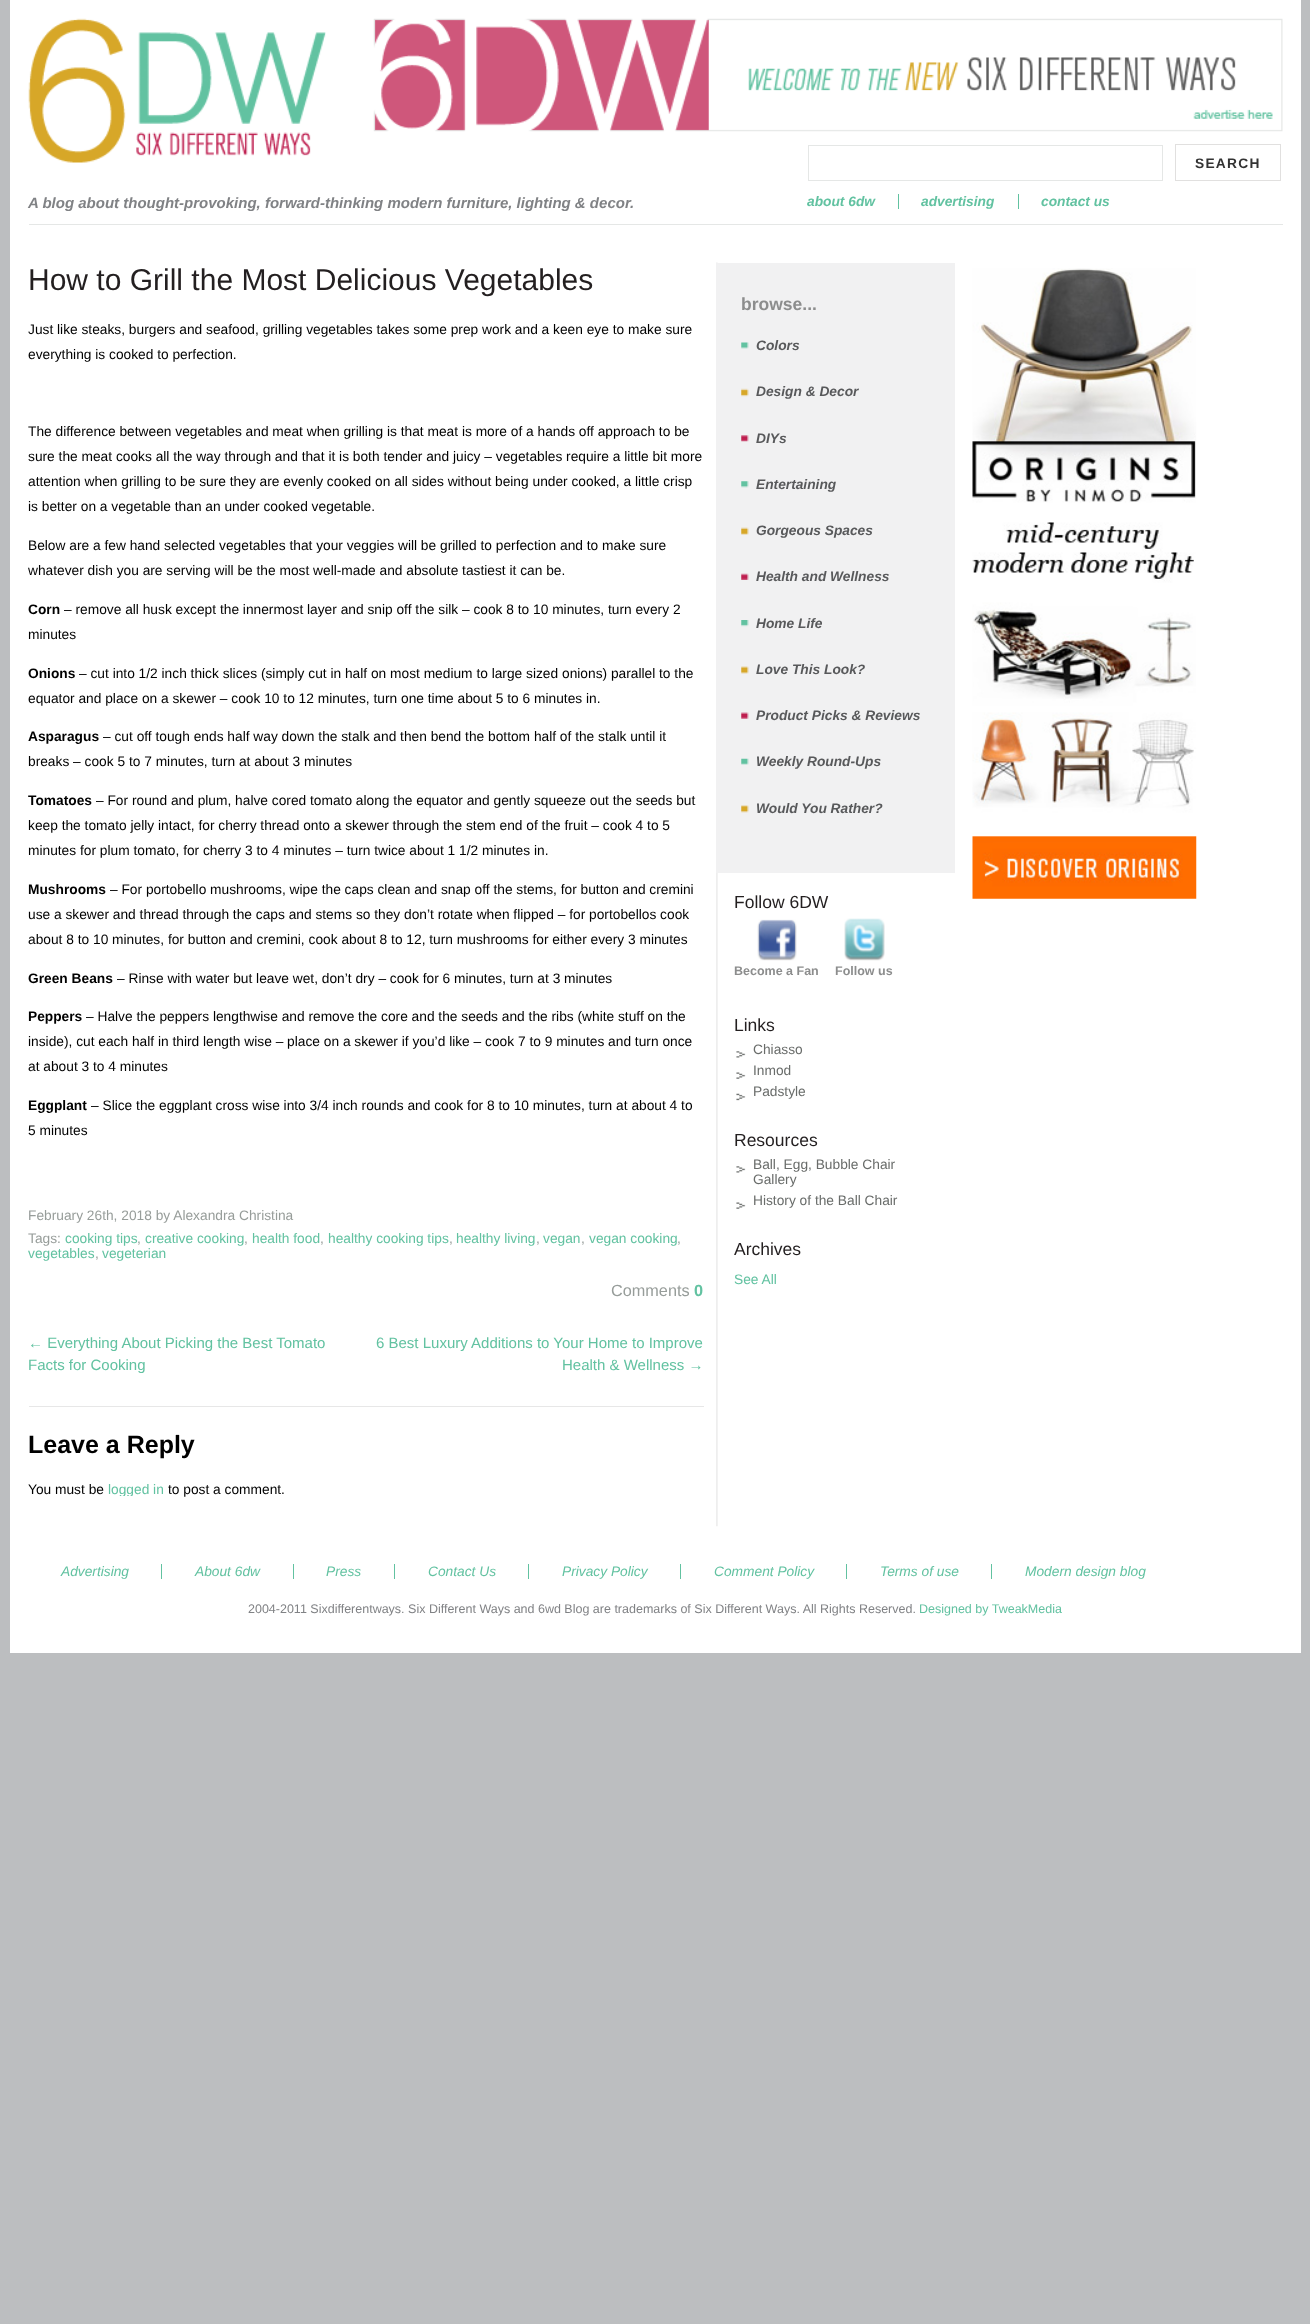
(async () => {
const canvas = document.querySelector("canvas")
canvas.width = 1310
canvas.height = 2324
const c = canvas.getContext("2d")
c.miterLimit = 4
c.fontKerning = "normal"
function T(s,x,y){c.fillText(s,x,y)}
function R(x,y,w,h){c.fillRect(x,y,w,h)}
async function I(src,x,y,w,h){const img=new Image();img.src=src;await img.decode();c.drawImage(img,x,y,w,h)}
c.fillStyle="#bcbec0"
R(0,0,1310,2324)
c.fillStyle="#fff"
R(10,0,1291,1653)
await I("1.png",28,18,298,145)
await I("2.png",373,18,910,114)
c.fillStyle="#e5e7e6"
R(29,224,1254,1)
c.font="italic bold 15px Liberation Sans"
c.fillStyle="#808285"
T("A blog about thought-provoking, forward-thinking modern furniture, lighting & decor.",28,208)
c.strokeStyle="#e5e7e6"
c.strokeRect(808.5,145.5,354,35)
c.strokeStyle="#e1e0df"
c.strokeRect(1175.5,144.5,105,36)
c.letterSpacing="1.25px"
c.font="bold 13.75px Liberation Sans"
c.fillStyle="#333"
T("SEARCH",1195,168)
c.letterSpacing="0px"
c.font="italic bold 13.75px Liberation Sans"
c.fillStyle="#62c2a1"
T("about 6dw",807,206)
R(898,194,1,15)
T("advertising",921,206)
R(1018,194,1,15)
T("contact us",1041,206)
await I("3.png",716,262,2,1265)
c.font="30px Liberation Sans"
c.fillStyle="#231f20"
T("How to Grill the Most Delicious Vegetables",28,290)
c.font="13.75px Liberation Sans"
c.fillStyle="#000"
T("Just like steaks, burgers and seafood, grilling vegetables takes some prep work and a keen eye to make sure",28,334)
T("everything is cooked to perfection.",28,359)
T("The difference between vegetables and meat when grilling is that meat is more of a hands off approach to be",28,436)
T("sure the meat cooks all the way through and that it is both tender and juicy – vegetables require a little bit more",28,461)
T("attention when grilling to be sure they are evenly cooked on all sides without being under cooked, a little crisp",28,486)
T("is better on a vegetable than an under cooked vegetable.",28,511)
T("Below are a few hand selected vegetables that your veggies will be grilled to perfection and to make sure",28,550)
T("whatever dish you are serving will be the most well-made and absolute tastiest it can be.",28,575)
c.font="bold 13.75px Liberation Sans"
T("Corn",28,614)
c.font="13.75px Liberation Sans"
T("– remove all husk except the innermost layer and snip off the silk – cook 8 to 10 minutes, turn every 2",64,614)
T("minutes",28,639)
c.font="bold 13.75px Liberation Sans"
T("Onions",28,678)
c.font="13.75px Liberation Sans"
T("– cut into 1/2 inch thick slices (simply cut in half on most medium to large sized onions) parallel to the",79,678)
T("equator and place on a skewer – cook 10 to 12 minutes, turn one time about 5 to 6 minutes in.",28,703)
c.font="bold 13.75px Liberation Sans"
T("Asparagus",28,741)
c.font="13.75px Liberation Sans"
T("– cut off tough ends half way down the stalk and then bend the bottom half of the stalk until it",103,741)
T("breaks – cook 5 to 7 minutes, turn at about 3 minutes",28,766)
c.font="bold 13.75px Liberation Sans"
T("Tomatoes",28,805)
c.font="13.75px Liberation Sans"
T("– For round and plum, halve cored tomato along the equator and gently squeeze out the seeds but",96,805)
T("keep the tomato jelly intact, for cherry thread onto a skewer through the stem end of the fruit – cook 4 to 5",28,830)
T("minutes for plum tomato, for cherry 3 to 4 minutes – turn twice about 1 1/2 minutes in.",28,855)
c.font="bold 13.75px Liberation Sans"
T("Mushrooms",28,894)
c.font="13.75px Liberation Sans"
T("– For portobello mushrooms, wipe the caps clean and snap off the stems, for button and cremini",110,894)
T("use a skewer and thread through the caps and stems so they don’t rotate when flipped – for portobellos cook",28,919)
T("about 8 to 10 minutes, for button and cremini, cook about 8 to 12, turn mushrooms for either every 3 minutes",28,944)
c.font="bold 13.75px Liberation Sans"
T("Green Beans",28,983)
c.font="13.75px Liberation Sans"
T("– Rinse with water but leave wet, don’t dry – cook for 6 minutes, turn at 3 minutes",117,983)
c.font="bold 13.75px Liberation Sans"
T("Peppers",28,1021)
c.font="13.75px Liberation Sans"
T("– Halve the peppers lengthwise and remove the core and the seeds and the ribs (white stuff on the",86,1021)
T("inside), cut each half in third length wise – place on a skewer if you’d like – cook 7 to 9 minutes and turn once",28,1046)
T("at about 3 to 4 minutes",28,1071)
c.font="bold 13.75px Liberation Sans"
T("Eggplant",28,1110)
c.font="13.75px Liberation Sans"
T("– Slice the eggplant cross wise into 3/4 inch rounds and cook for 8 to 10 minutes, turn at about 4 to",91,1110)
T("5 minutes",28,1135)
c.fillStyle="#979d9a"
T("February 26th, 2018 by Alexandra Christina",28,1220)
T("Tags:",28,1243)
c.fillStyle="#62c2a1"
T("cooking tips",65,1243)
c.fillStyle="#979d9a"
T(",",137,1243)
c.fillStyle="#62c2a1"
T("creative cooking",145,1243)
c.fillStyle="#979d9a"
T(",",244,1243)
c.fillStyle="#62c2a1"
T("health food",252,1243)
c.fillStyle="#979d9a"
T(",",320,1243)
c.fillStyle="#62c2a1"
T("healthy cooking tips",328,1243)
c.fillStyle="#979d9a"
T(",",449,1243)
c.fillStyle="#62c2a1"
T("healthy living",456,1243)
c.fillStyle="#979d9a"
T(",",536,1243)
c.fillStyle="#62c2a1"
T("vegan",543,1243)
c.fillStyle="#979d9a"
T(",",581,1243)
c.fillStyle="#62c2a1"
T("vegan cooking",589,1243)
c.fillStyle="#979d9a"
T(",",677,1243)
c.fillStyle="#62c2a1"
T("vegetables",28,1258)
c.fillStyle="#979d9a"
T(",",95,1258)
c.fillStyle="#62c2a1"
T("vegeterian",102,1258)
c.font="16.25px Liberation Sans"
c.fillStyle="#979d9a"
T("Comments",611,1296)
c.font="bold 16.25px Liberation Sans"
c.fillStyle="#62c2a1"
T("0",694,1296)
c.font="15px Liberation Sans"
T("← Everything About Picking the Best Tomato",28,1348)
T("Facts for Cooking",28,1370)
T("6 Best Luxury Additions to Your Home to Improve",376,1348)
T("Health & Wellness →",562,1370)
c.fillStyle="#e7e7e7"
R(29,1406,675,1)
c.font="bold 25px Liberation Sans"
c.fillStyle="#000"
T("Leave a Reply",28,1453)
c.font="13.75px Liberation Sans"
T("You must be",28,1494)
c.save()
c.beginPath()
c.rect(29,1408,675,88)
c.clip()
c.fillStyle="#62c2a1"
T("logged in",108,1494)
c.restore()
T("to post a comment.",168,1494)
c.fillStyle="#f1f1f2"
R(716,263,239,610)
c.font="bold 17.5px Liberation Sans"
c.fillStyle="#8c8d8d"
T("browse...",741,310)
await I("4.png",741,342,8,7)
c.font="italic bold 13.75px Liberation Sans"
c.fillStyle="#58595b"
T("Colors",756,350)
await I("5.png",741,388,8,9)
T("Design & Decor",756,396)
await I("6.png",741,435,8,7)
T("DIYs",756,443)
await I("7.png",741,481,8,7)
T("Entertaining",756,489)
await I("8.png",741,527,8,8)
T("Gorgeous Spaces",756,535)
await I("9.png",741,573,8,7)
T("Health and Wellness",756,581)
await I("10.png",741,620,8,7)
T("Home Life",756,628)
await I("11.png",741,666,8,8)
T("Love This Look?",756,674)
await I("12.png",741,712,8,7)
T("Product Picks & Reviews",756,720)
await I("13.png",741,758,8,7)
T("Weekly Round-Ups",756,766)
await I("14.png",741,805,8,8)
T("Would You Rather?",756,813)
c.font="17.5px Liberation Sans"
c.fillStyle="#231f20"
T("Follow 6DW",734,908)
await I("15.png",757,919,40,42)
c.font="bold 12.5px Liberation Sans"
c.fillStyle="#8c8d8d"
T("Become a Fan",734,975)
await I("16.png",844,918,41,43)
T("Follow us",835,975)
c.font="17.5px Liberation Sans"
c.fillStyle="#231f20"
T("Links",734,1031)
await I("17.png",736,1051,10,7)
c.font="13.75px Liberation Sans"
c.fillStyle="#696c6a"
T("Chiasso",753,1054)
await I("18.png",736,1072,10,7)
T("Inmod",753,1075)
await I("19.png",736,1093,10,8)
T("Padstyle",753,1096)
c.font="17.5px Liberation Sans"
c.fillStyle="#231f20"
T("Resources",734,1146)
await I("17.png",736,1166,10,7)
c.font="13.75px Liberation Sans"
c.fillStyle="#696c6a"
T("Ball, Egg, Bubble Chair",753,1169)
T("Gallery",753,1184)
await I("18.png",736,1202,10,7)
T("History of the Ball Chair",753,1205)
c.font="17.5px Liberation Sans"
c.fillStyle="#231f20"
T("Archives",734,1255)
c.font="13.75px Liberation Sans"
c.fillStyle="#62c2a1"
T("See All",734,1284)
await I("20.png",972,268,225,631)
c.font="italic 13.75px Liberation Sans"
T("Advertising",61,1576)
T("About 6dw",195,1576)
R(161,1564,1,15)
T("Press",326,1576)
R(293,1564,1,15)
T("Contact Us",428,1576)
R(394,1564,1,15)
T("Privacy Policy",562,1576)
R(528,1564,1,15)
T("Comment Policy",714,1576)
R(680,1564,1,15)
T("Terms of use",880,1576)
R(846,1564,1,15)
T("Modern design blog",1025,1576)
R(991,1564,1,15)
c.font="12.5px Liberation Sans"
c.fillStyle="#808285"
T("2004-2011 Sixdifferentways. Six Different Ways and 6wd Blog are trademarks of Six Different Ways. All Rights Reserved.",248,1613)
c.fillStyle="#62c2a1"
T("Designed by TweakMedia",919,1613)
})()
